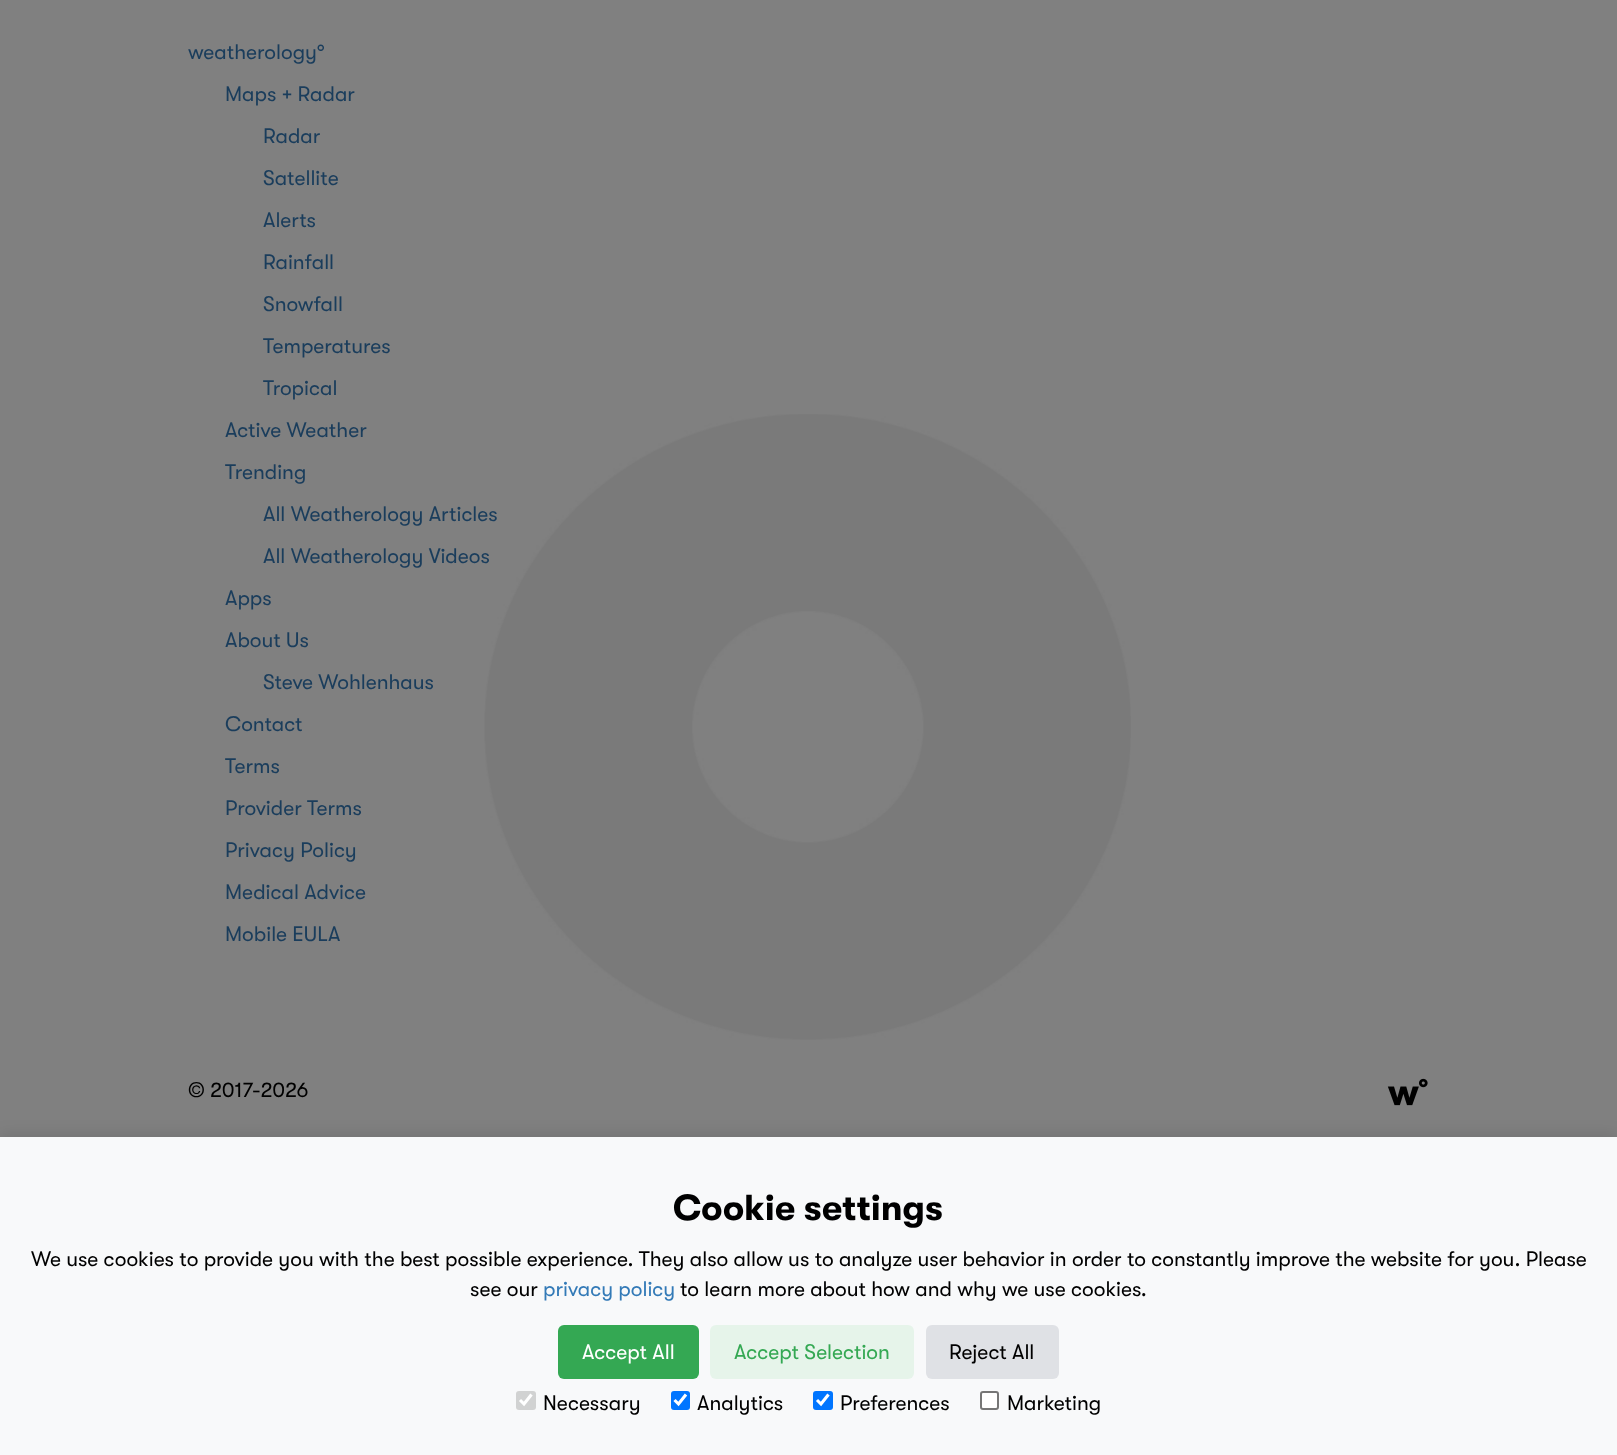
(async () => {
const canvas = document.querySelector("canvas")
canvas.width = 1617
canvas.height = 1455
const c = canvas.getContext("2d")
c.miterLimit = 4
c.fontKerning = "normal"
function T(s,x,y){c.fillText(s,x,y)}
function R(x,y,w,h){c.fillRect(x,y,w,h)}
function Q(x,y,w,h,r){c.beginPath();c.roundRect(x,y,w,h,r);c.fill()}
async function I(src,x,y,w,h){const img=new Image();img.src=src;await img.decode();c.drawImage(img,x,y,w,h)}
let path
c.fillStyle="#808080"
R(0,0,1617,1455)
await I("1.png",484,414,647,626)
c.font="21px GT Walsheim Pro"
c.fillStyle="#1a3d5c"
T("weatherology°",188,59)
T("Maps + Radar",225,101)
T("Radar",263,143)
T("Satellite",263,185)
T("Alerts",263,227)
T("Rainfall",263,269)
T("Snowfall",263,311)
T("Temperatures",263,353)
T("Tropical",263,395)
T("Active Weather",225,437)
T("Trending",225,479)
T("All Weatherology Articles",263,521)
T("All Weatherology Videos",263,563)
T("Apps",225,605)
T("About Us",225,647)
T("Steve Wohlenhaus",263,689)
T("Contact",225,731)
T("Terms",225,773)
T("Provider Terms",225,815)
T("Privacy Policy",225,857)
T("Medical Advice",225,899)
T("Mobile EULA",225,941)
c.fillStyle="#000"
T("© 2017-2026",188,1097)
await I("2.png",1387,1078,41,28)
c.fillStyle="#0000001a"
c.filter="blur(7.5px)"
c.beginPath()
c.rect(0,1134,1617,318)
c.fill()
c.filter="none"
c.fillStyle="#f8f9fa"
R(0,1137,1617,318)
c.font="bold 36px GT Walsheim Pro"
c.fillStyle="#000"
T("Cookie settings",673,1220)
c.font="21px GT Walsheim Pro"
T("We use cookies to provide you with the best possible experience. They also allow us to analyze user behavior in order to constantly improve the website for you. Please",31,1266)
T("see our",470,1296)
c.fillStyle="#337ab7"
T("privacy policy",543,1296)
c.fillStyle="#000"
T("to learn more about how and why we use cookies.",680,1296)
c.fillStyle="#34a853"
Q(558,1325,141,54,6)
c.fillStyle="#fff"
T("Accept All",582,1359)
c.fillStyle="#e6f4ea"
Q(710,1325,204,54,6)
c.fillStyle="#34a853"
T("Accept Selection",734,1359)
c.fillStyle="#dfe1e5"
Q(926,1325,133,54,6)
c.fillStyle="#000"
T("Reject All",949,1359)
c.fillStyle="#d1d2d2"
Q(516,1391,20,19,3)
path = new Path2D("M520 1400l4 4l7.5-9.5")
c.strokeStyle="#fff"
c.lineWidth=3.1
c.stroke(path)
c.fillStyle="#000"
T("Necessary",543,1410)
c.fillStyle="#0075ff"
Q(671,1391,19,19,3)
path = new Path2D("M674.5 1400l4 4l7.5-9.5")
c.stroke(path)
c.fillStyle="#000"
T("Analytics",697,1410)
c.fillStyle="#0075ff"
Q(813,1391,20,19,3)
path = new Path2D("M817 1400l4 4l7.5-9.5")
c.stroke(path)
c.fillStyle="#000"
T("Preferences",840,1410)
c.fillStyle="#fff"
c.beginPath()
c.roundRect(981,1392,17,17,2)
c.fill()
c.strokeStyle="#767676"
c.lineWidth=2
c.stroke()
c.fillStyle="#000"
T("Marketing",1007,1410)
})()
